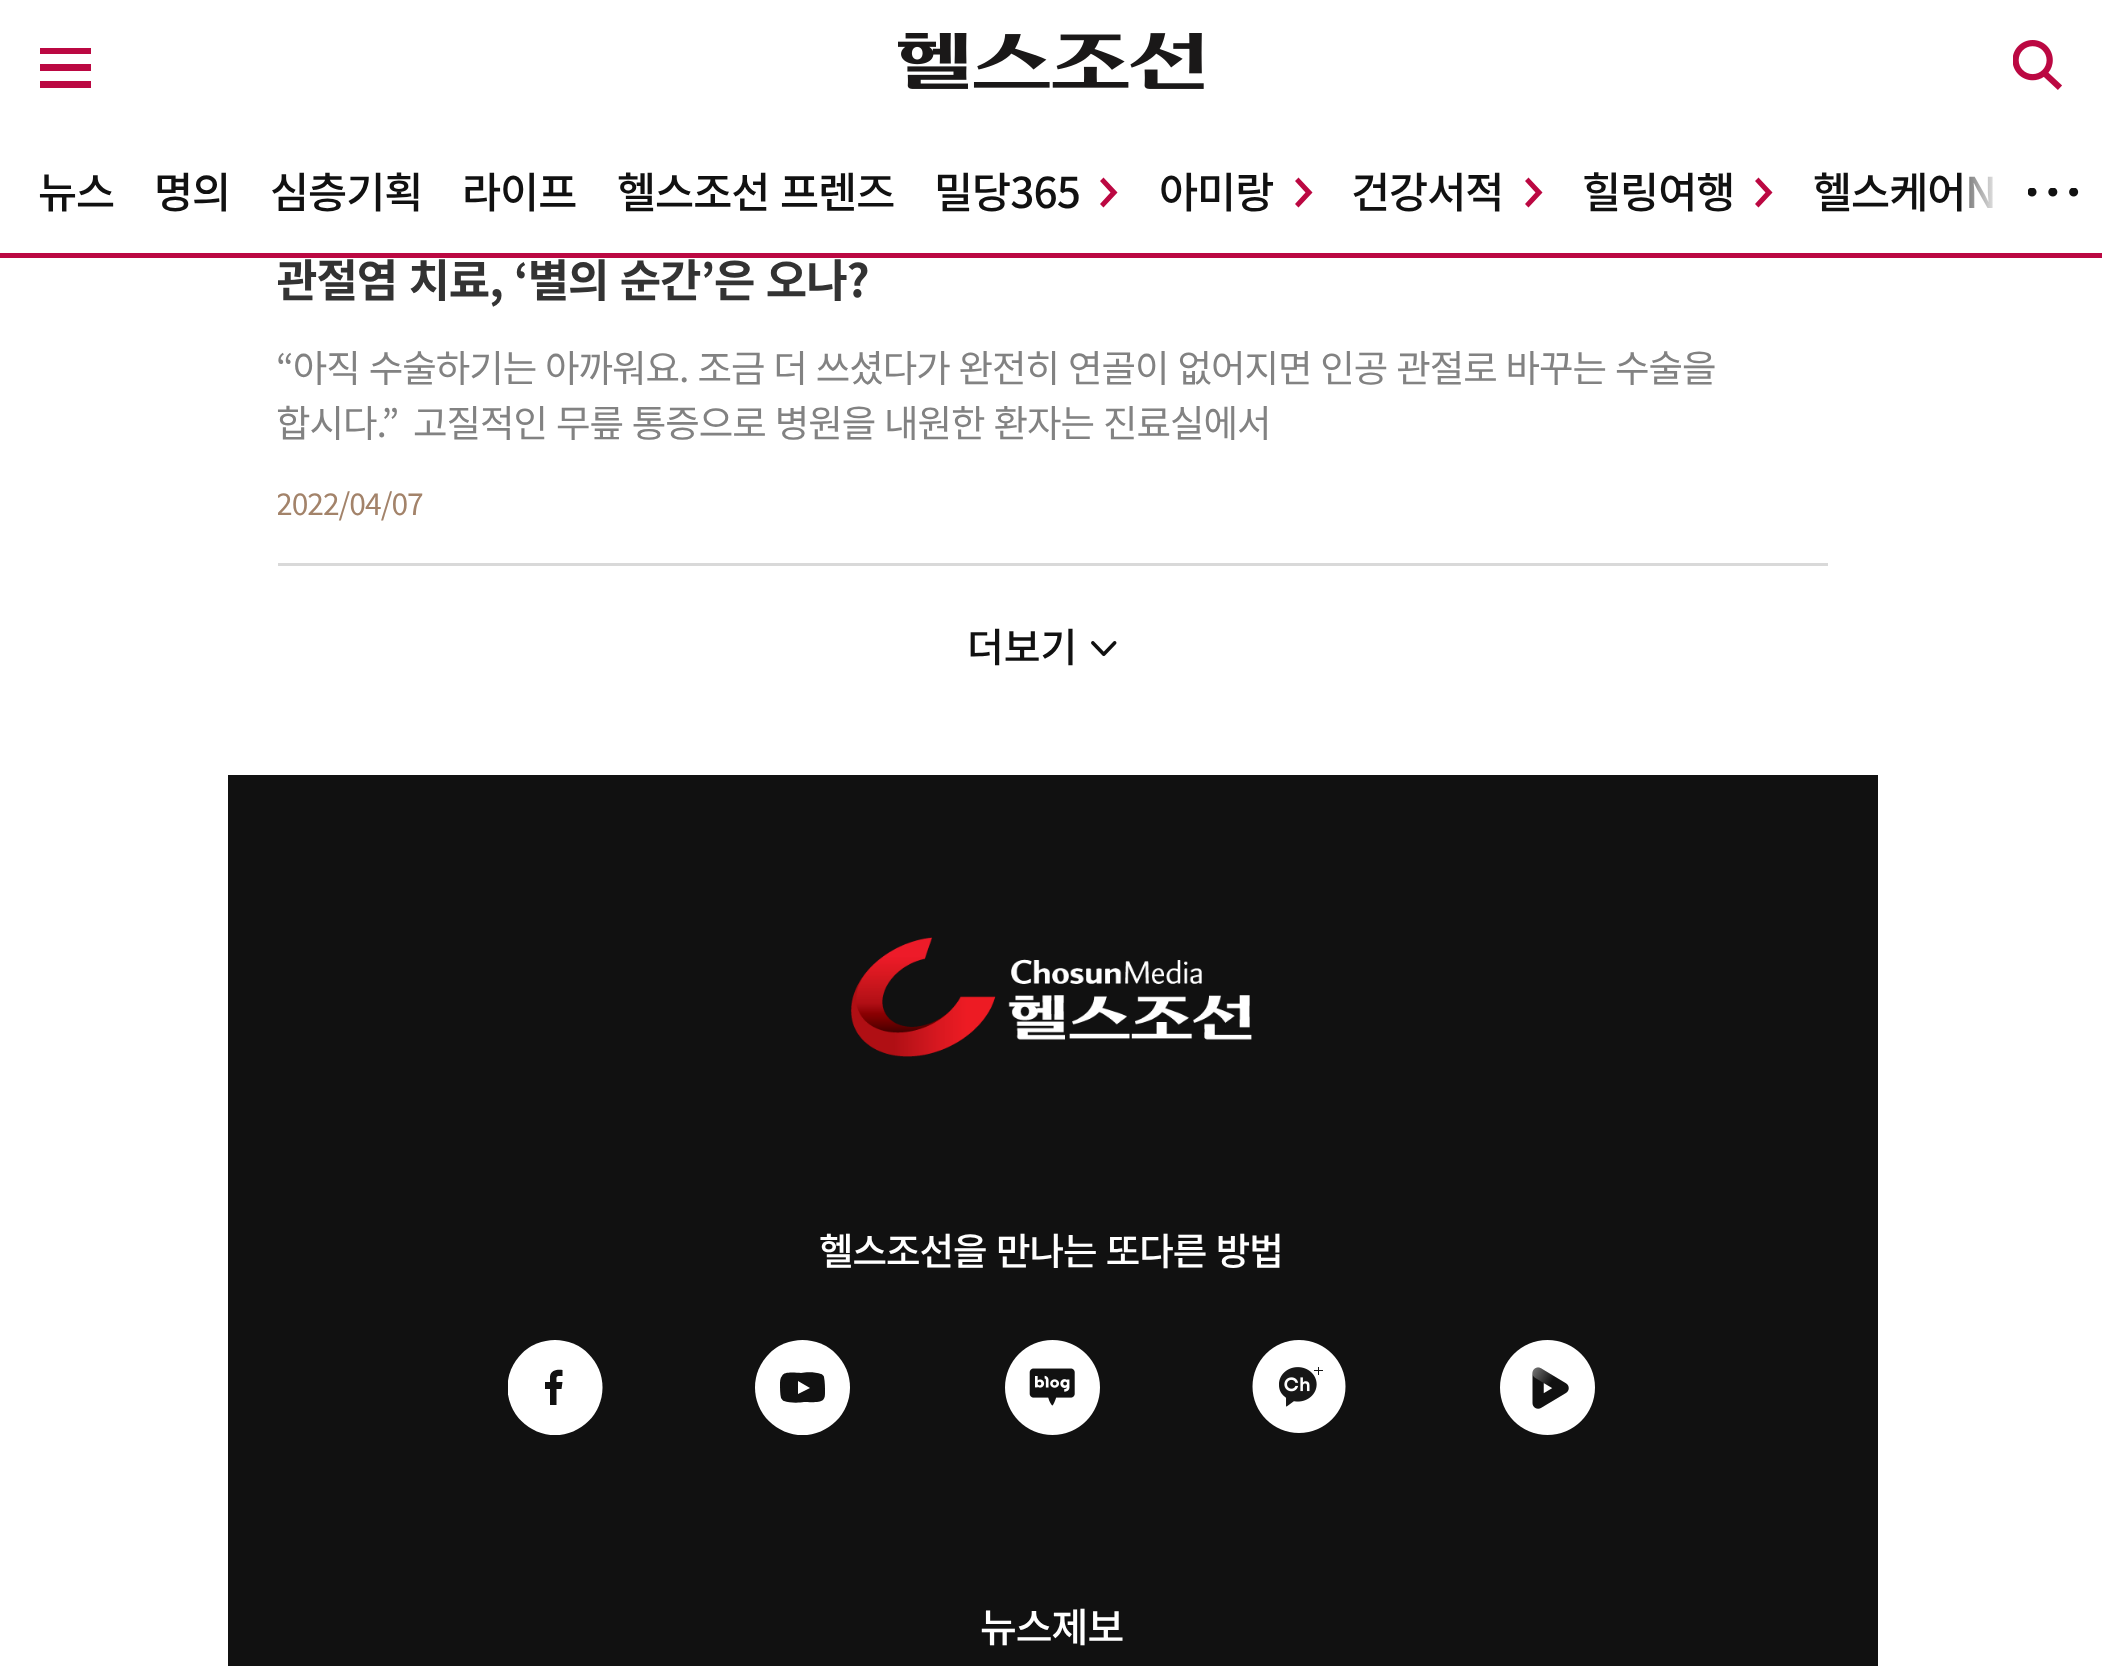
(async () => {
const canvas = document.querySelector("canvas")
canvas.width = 2102
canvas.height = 1666
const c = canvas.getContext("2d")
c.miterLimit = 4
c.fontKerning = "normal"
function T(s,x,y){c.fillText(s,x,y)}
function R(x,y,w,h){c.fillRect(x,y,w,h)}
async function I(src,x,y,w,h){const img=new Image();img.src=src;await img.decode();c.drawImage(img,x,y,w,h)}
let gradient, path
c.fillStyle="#fff"
R(0,0,2102,1666)
c.fillStyle="#bb0842"
path = new Path2D("M40 88h51v-7h-51zm0-17h51v-7h-51zm0-23v6h51v-6z")
c.fill(path)
await I("1.png",898,33,306,56)
await I("2.png",2013,40,49,50)
R(0,253,2102,5)
c.letterSpacing="-1px"
c.font="500 42.5px Noto Sans KR"
c.fillStyle="#111"
T("뉴스",38,208)
T("명의",154,208)
T("심층기획",270,208)
T("라이프",462,208)
c.wordSpacing="2px"
T("헬스조선 프렌즈",617,208)
c.wordSpacing="0px"
T("밀당365",934,208)
c.fillStyle="#bb0842"
path = new Path2D("M1100 204l10.5-11.5l-10.5-11.5l3.5-3.5l14 15l-14 15z")
c.fill(path)
c.fillStyle="#111"
T("아미랑",1159,208)
c.fillStyle="#bb0842"
path = new Path2D("M1295 204l10.5-11.5l-10.5-11.5l3.5-3.5l14 15l-14 15z")
c.fill(path)
c.fillStyle="#111"
T("건강서적",1351,208)
c.fillStyle="#bb0842"
path = new Path2D("M1525 204l10.5-11.5l-10.5-11.5l3.5-3.5l14 15l-14 15z")
c.fill(path)
c.fillStyle="#111"
T("힐링여행",1582,208)
c.fillStyle="#bb0842"
path = new Path2D("M1755 204l10.5-11.5l-10.5-11.5l3.5-3.5l14 15l-14 15z")
c.fill(path)
c.fillStyle="#111"
T("헬스케어N",1813,208)
gradient = c.createLinearGradient(1970,193,2003,193)
gradient.addColorStop(0,"#ffffff80")
gradient.addColorStop(1,"#fff")
c.fillStyle = gradient
R(1970,176,23,32)
await I("3.png",2028,188,51,9)
c.save()
c.beginPath()
c.rect(278,245,592,65)
c.clip()
c.wordSpacing="2px"
c.font="bold 45px Noto Sans KR"
c.fillStyle="#333"
T("관절염 치료, ‘별의 순간’은 오나?",276,297)
c.restore()
c.wordSpacing="1.5px"
c.font="37.5px Noto Sans KR"
c.fillStyle="#828282"
T("“아직 수술하기는 아까워요. 조금 더 쓰셨다가 완전히 연골이 없어지면 인공 관절로 바꾸는 수술을",276,382)
c.wordSpacing="0px"
T("합시다.”",276,437)
c.wordSpacing="1.5px"
T("고질적인 무릎 통증으로 병원을 내원한 환자는 진료실에서",413,437)
c.save()
c.beginPath()
c.rect(278,205,1550,358)
c.clip()
c.wordSpacing="0px"
c.font="30px Noto Sans KR"
c.fillStyle="#a3836a"
T("2022/04/07",276,515)
c.restore()
c.fillStyle="#d9d9d9"
R(278,563,1550,3)
c.letterSpacing="0px"
c.wordSpacing="0px"
c.font="500 40px Noto Sans KR"
c.fillStyle="#111"
T("더보기",967,662)
await I("4.png",1091,641,26,16)
R(228,775,1650,891)
await I("5.png",850,937,402,120)
c.letterSpacing="-1px"
c.wordSpacing="2px"
c.font="500 37.5px Noto Sans KR"
c.fillStyle="#fff"
T("헬스조선을 만나는 또다른 방법",819,1265)
c.save()
c.beginPath()
c.rect(508,1340,95,95)
c.clip()
c.beginPath()
c.arc(555,1387.5,47.5,0,7)
c.fill()
c.restore()
c.fillStyle="#111"
path = new Path2D("M562.5 1382h-6c0-6-1-6 6-6v-6c-5.5-.5-11.5 0-12.5 6.5v5.5h-5v7h5v16h6.5v-16h5z")
c.fill(path)
c.fillStyle="#fff"
c.beginPath()
c.arc(802.5,1387.5,47.5,0,7)
c.fill()
c.fillStyle="#111"
path = new Path2D("M798 1394l12-6l-12-7zm26-17c1 5 1 11 1 15c0 3 0 6-2 8c-3 3-14 2-19 2c-5 1-15 1-20-1c-1 0-2-2-3-3c-1-4-1-10-1-14c0-2 0-6 2-8c2-5 14-3 19-3c5-1 15-1 20 1c1 0 3 2 3 3z")
c.fill(path)
await I("6.png",1005,1340,95,95)
await I("7.png",1252,1340,94,93)
await I("8.png",1500,1340,95,95)
c.wordSpacing="0px"
c.font="500 40px Noto Sans KR"
c.fillStyle="#fff"
T("뉴스제보",980,1642)
})()
